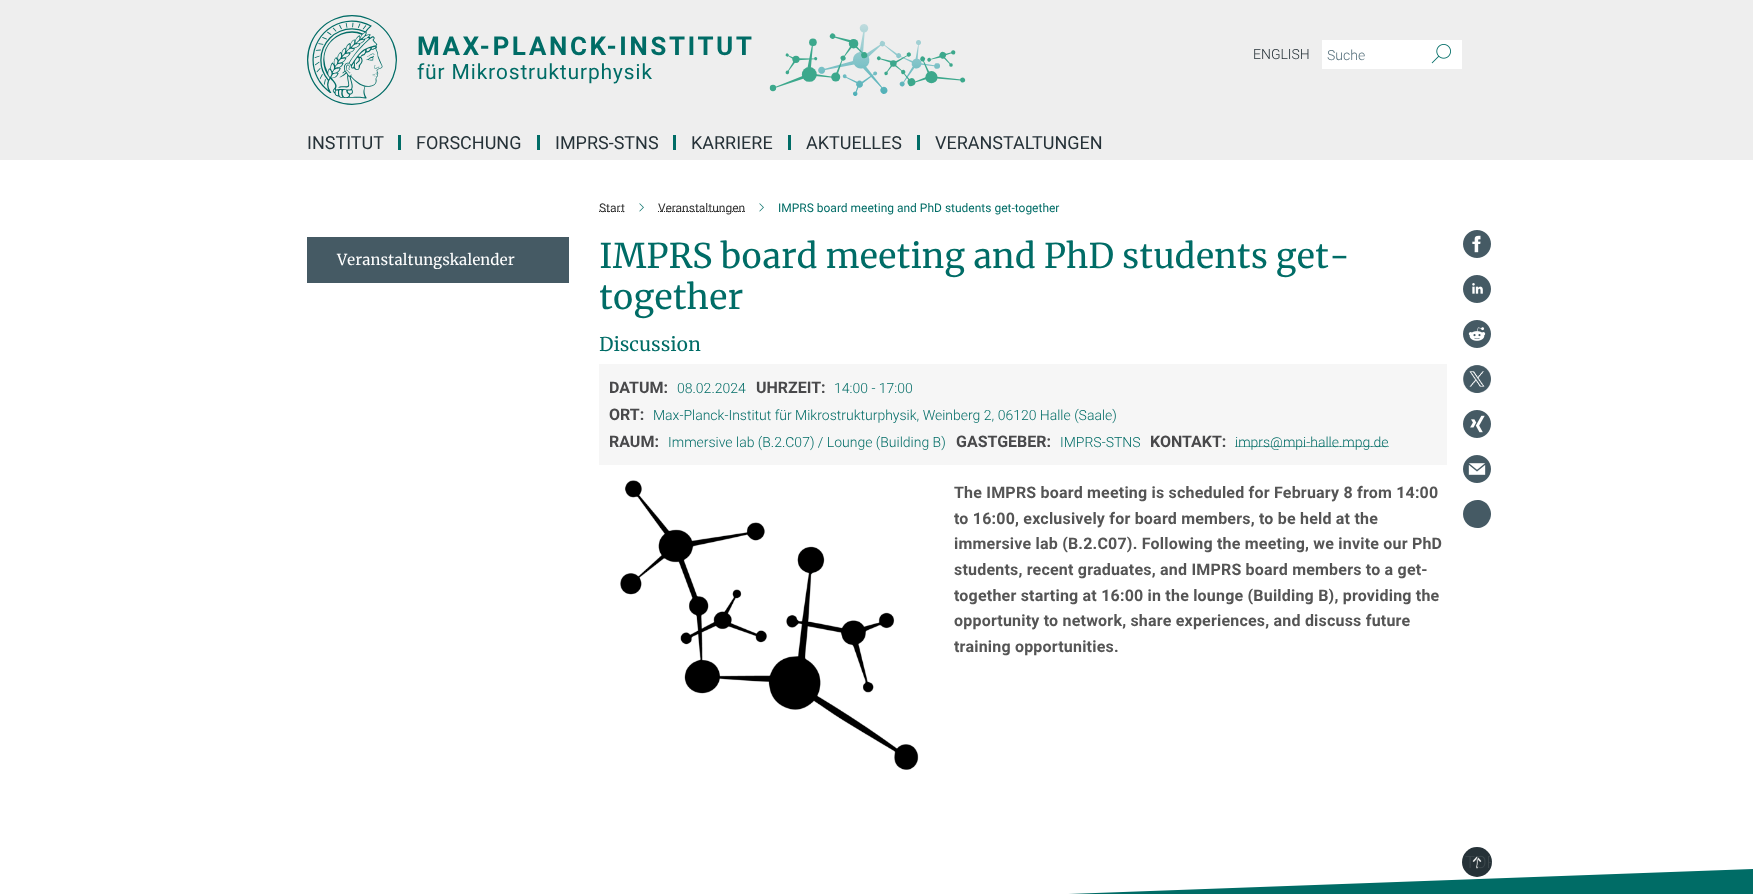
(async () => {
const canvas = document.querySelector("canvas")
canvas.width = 1753
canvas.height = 894
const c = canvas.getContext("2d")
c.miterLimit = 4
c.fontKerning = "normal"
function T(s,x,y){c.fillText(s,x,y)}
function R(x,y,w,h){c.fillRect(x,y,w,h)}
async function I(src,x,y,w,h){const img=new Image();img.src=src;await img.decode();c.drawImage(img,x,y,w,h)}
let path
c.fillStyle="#fff"
R(0,0,1753,894)
c.fillStyle="#eee"
R(0,0,1753,160)
await I("1.png",307,15,659,90)
c.font="300 14px Roboto"
c.fillStyle="#263238"
T("ENGLISH",1253,59)
c.fillStyle="#fff"
R(1322,40,140,29)
c.fillStyle="#546e7a"
T("Suche",1327,60)
await I("2.png",1431,44,20,20)
c.fillStyle="#006c66"
R(398,135,3,15)
c.font="18px Roboto"
c.fillStyle="#263238"
T("INSTITUT",307,149)
c.fillStyle="#006c66"
R(537,135,3,15)
c.fillStyle="#263238"
T("FORSCHUNG",416,149)
c.fillStyle="#006c66"
R(673,135,3,15)
c.fillStyle="#263238"
T("IMPRS-STNS",555,149)
c.fillStyle="#006c66"
R(788,135,3,15)
c.fillStyle="#263238"
T("KARRIERE",691,149)
c.fillStyle="#006c66"
R(917,135,3,15)
c.fillStyle="#263238"
T("AKTUELLES",806,149)
T("VERANSTALTUNGEN",935,149)
c.fillStyle="#455a64"
R(307,237,262,46)
c.font="15px Merriweather"
c.fillStyle="#fff"
T("Veranstaltungskalender",337,265)
path = new Path2D("M599 211.5h26")
c.strokeStyle="#333"
c.setLineDash([1,1])
c.stroke(path)
c.font="12px Roboto"
c.fillStyle="#333"
T("Start",599,212)
await I("3.png",639,203,5,9)
path = new Path2D("M658 211.5h87")
c.stroke(path)
T("Veranstaltungen",658,212)
await I("3.png",759,203,5,9)
c.fillStyle="#006c66"
T("IMPRS board meeting and PhD students get-together",778,212)
c.font="34px Merriweather"
T("IMPRS board meeting and PhD students get-",599,268)
T("together",599,309)
await I("4.png",1463,230,28,28)
await I("5.png",1463,275,28,28)
await I("6.png",1463,320,28,28)
await I("7.png",1463,365,28,28)
await I("8.png",1463,410,28,28)
await I("9.png",1463,455,28,28)
c.fillStyle="#455a64"
path = new Path2D("M1491 514c0 3-1 5.5-2.5 8c-7.5 11.5-25.5 5.5-25.5-8c0-13.5 18-19.5 25.5-8c1.5 2.5 2.5 5 2.5 8z")
c.fill(path)
c.font="19px Merriweather"
c.fillStyle="#006c66"
T("Discussion",599,351)
c.fillStyle="#f6f6f6"
R(599,364,848,101)
c.font="bold 16px Roboto"
c.fillStyle="#49494b"
T("DATUM:",609,393)
c.font="300 14px Roboto"
c.fillStyle="#006c66"
T("08.02.2024",677,393)
c.font="bold 16px Roboto"
c.fillStyle="#49494b"
T("UHRZEIT:",756,393)
c.font="300 14px Roboto"
c.fillStyle="#006c66"
T("14:00 - 17:00",834,393)
c.font="bold 16px Roboto"
c.fillStyle="#49494b"
T("ORT:",609,420)
c.font="300 14px Roboto"
c.fillStyle="#006c66"
T("Max-Planck-Institut für Mikrostrukturphysik, Weinberg 2, 06120 Halle (Saale)",653,420)
c.font="bold 16px Roboto"
c.fillStyle="#49494b"
T("RAUM:",609,447)
c.font="300 14px Roboto"
c.fillStyle="#006c66"
T("Immersive lab (B.2.C07) / Lounge (Building B)",668,447)
c.font="bold 16px Roboto"
c.fillStyle="#49494b"
T("GASTGEBER:",956,447)
c.font="300 14px Roboto"
c.fillStyle="#006c66"
T("IMPRS-STNS",1060,447)
c.font="bold 16px Roboto"
c.fillStyle="#49494b"
T("KONTAKT:",1150,447)
path = new Path2D("M1235.5 446.5h153.5")
c.strokeStyle="#006c66"
c.stroke(path)
c.font="300 14px Roboto"
c.fillStyle="#006c66"
T("imprs@mpi-halle.mpg.de",1235,447)
await I("10.png",620,480,299,290)
c.letterSpacing="0.2px"
c.font="bold 16px Roboto"
c.fillStyle="#555"
T("The IMPRS board meeting is scheduled for February 8 from 14:00",954,498)
T("to 16:00, exclusively for board members, to be held at the",954,524)
T("immersive lab (B.2.C07). Following the meeting, we invite our PhD",954,549)
T("students, recent graduates, and IMPRS board members to a get-",954,575)
T("together starting at 16:00 in the lounge (Building B), providing the",954,601)
T("opportunity to network, share experiences, and discuss future",954,626)
T("training opportunities.",954,652)
c.fillStyle="#006c66"
path = new Path2D("M0 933l1753-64v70h-1753")
c.fill(path)
c.fillStyle="#263238"
c.beginPath()
c.arc(1477,862,15,0,7)
c.fill()
await I("11.png",1472,856,10,13)
c.save()
c.beginPath()
c.roundRect(1462,847,30,30,15)
c.clip()
c.letterSpacing="0px"
c.font="300 17px Roboto"
c.fillStyle="#3d484d"
T("TOP",1465,868)
c.restore()
})()
